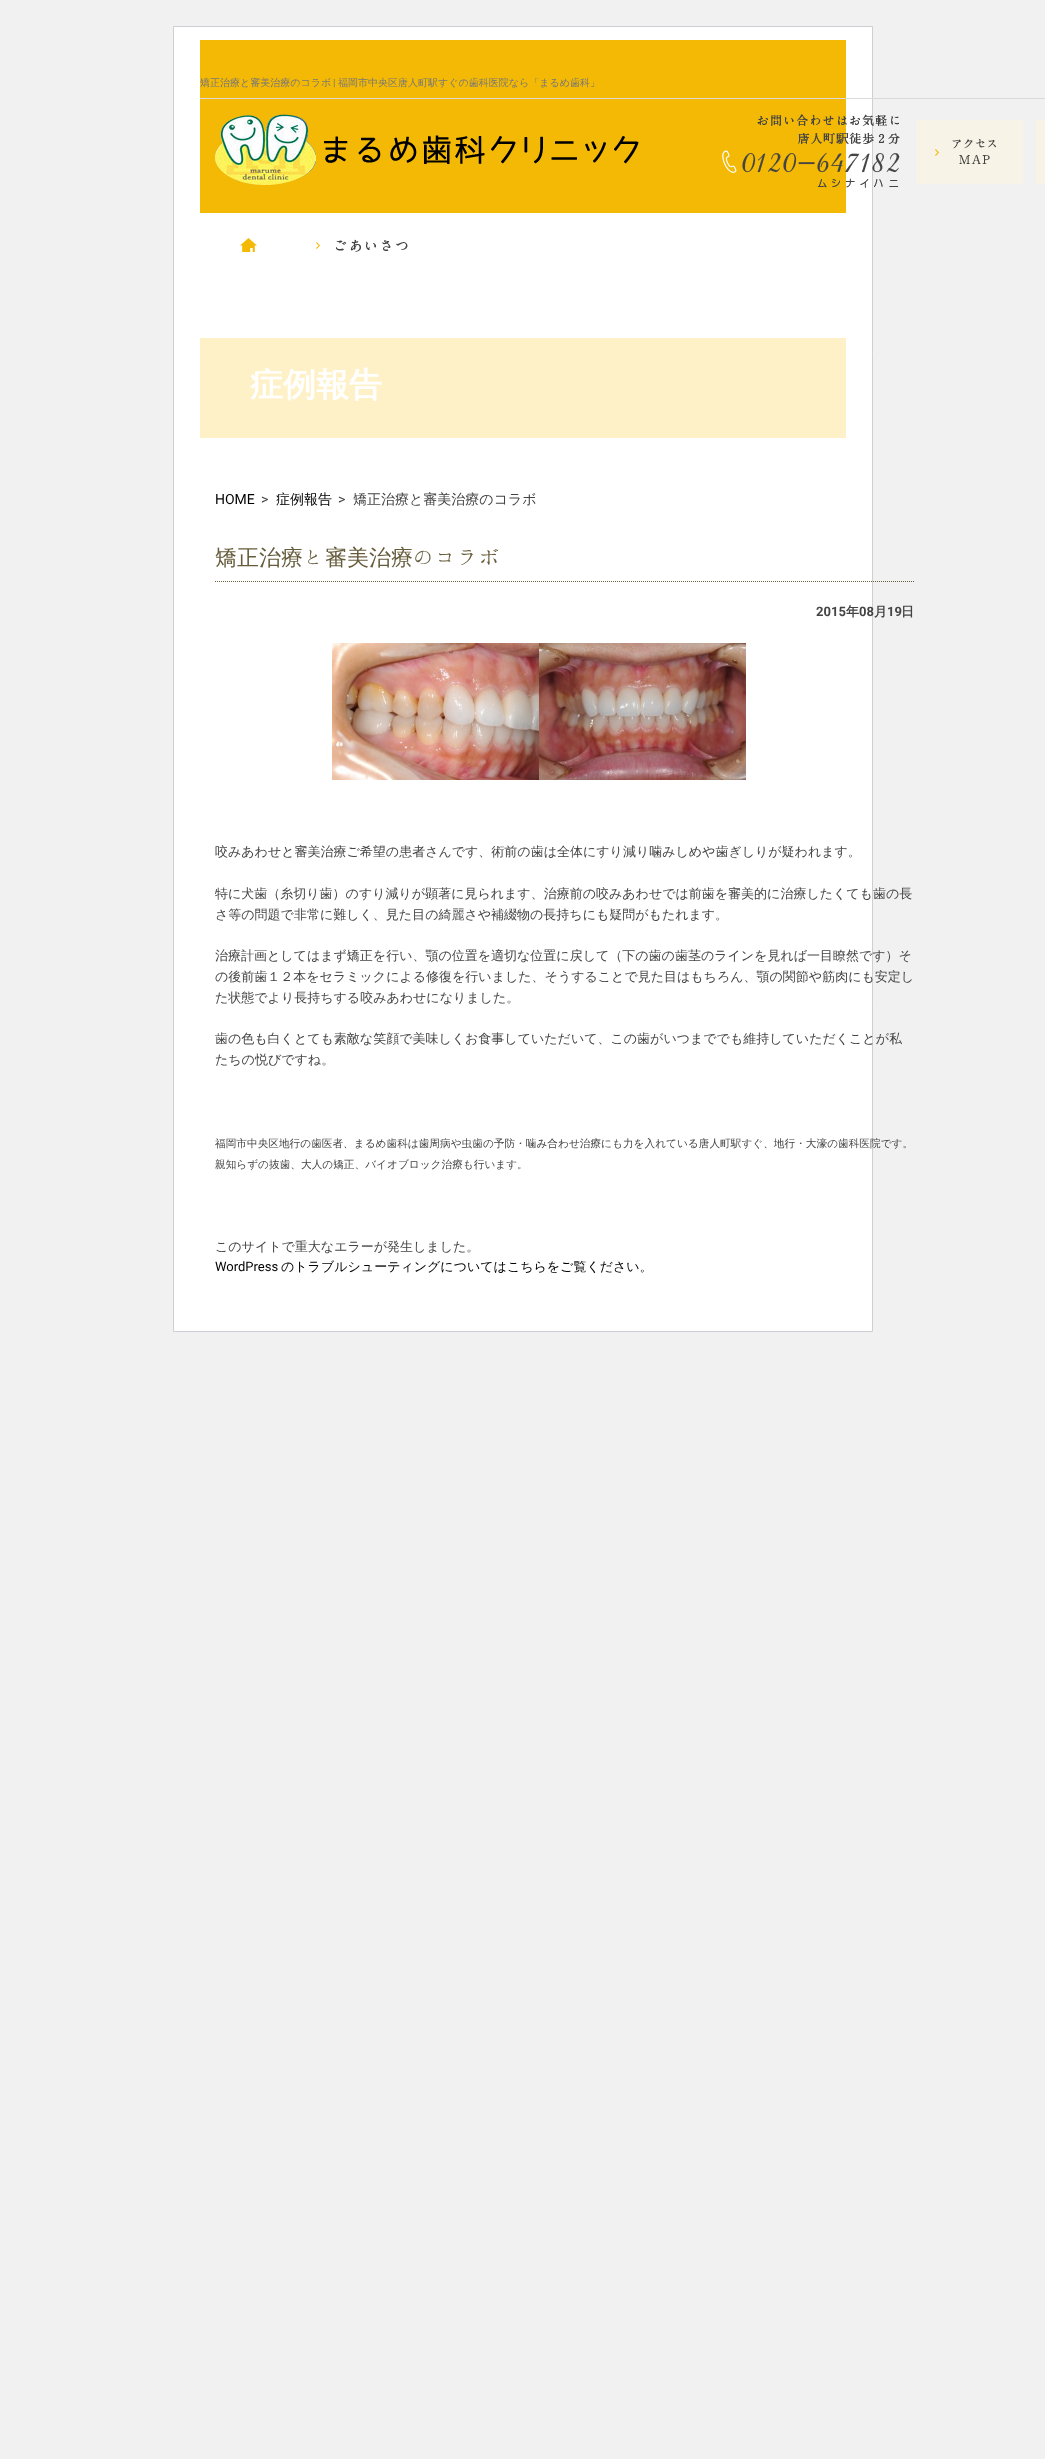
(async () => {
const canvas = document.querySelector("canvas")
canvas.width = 1045
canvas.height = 2459
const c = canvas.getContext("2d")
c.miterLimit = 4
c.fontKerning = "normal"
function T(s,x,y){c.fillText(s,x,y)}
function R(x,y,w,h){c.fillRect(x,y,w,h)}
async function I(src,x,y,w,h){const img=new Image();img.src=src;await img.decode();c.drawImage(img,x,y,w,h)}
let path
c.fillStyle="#f1f1f1"
R(0,0,1045,2459)
c.fillStyle="#fff"
c.beginPath()
c.rect(173.5,26.5,699,1305)
c.fill()
c.strokeStyle="#ccd0d4"
c.stroke()
c.fillStyle="#f4b904"
R(200,40,646,173)
c.fillStyle="#dadada"
R(200,98,845,1)
c.font="500 10px WenQuanYi Zen Hei"
c.fillStyle="#777"
T("矯正治療と審美治療のコラボ",200,86)
c.font="10px Roboto"
T("|",333,86)
c.font="500 10px WenQuanYi Zen Hei"
T("福岡市中央区唐人町駅すぐの歯科医院なら「まるめ歯科」",338,86)
await I("1.png",215,114,424,71)
await I("2.png",757,114,143,30)
await I("3.png",722,150,178,38)
await I("4.png",916,120,107,64)
c.fillStyle="#f8f3e7"
R(1036,120,9,64)
await I("5.png",240,238,17,14)
await I("6.png",316,239,92,13)
c.fillStyle="#fff1c7"
R(200,338,646,100)
c.font="bold 33px WenQuanYi Zen Hei"
c.fillStyle="#fff"
T("症例報告",250,396)
c.font="14px Roboto"
c.fillStyle="#000"
T("HOME",215,504)
c.fillStyle="#444"
T(">",261,504)
c.font="500 14px WenQuanYi Zen Hei"
c.fillStyle="#000"
T("症例報告",276,504)
c.font="14px Roboto"
c.fillStyle="#444"
T(">",338,504)
c.font="500 14px WenQuanYi Zen Hei"
T("矯正治療と審美治療のコラボ",353,504)
path = new Path2D("M215 581.5h700")
c.strokeStyle="#665c3b"
c.setLineDash([1,1])
c.stroke(path)
c.font="500 22px WenQuanYi Zen Hei"
c.fillStyle="#665c3b"
T("矯正治療",215,565)
c.font="22px Hannari"
T("と",303,565)
c.font="500 22px WenQuanYi Zen Hei"
T("審美治療",325,565)
c.font="22px Hannari"
T("のコラボ",413,565)
c.font="bold 13px Roboto"
c.fillStyle="#444"
T("2015",816,616)
c.font="bold 13px WenQuanYi Zen Hei"
T("年",846,616)
c.font="bold 13px Roboto"
T("08",859,616)
c.font="bold 13px WenQuanYi Zen Hei"
T("月",874,616)
c.font="bold 13px Roboto"
T("19",887,616)
c.font="bold 13px WenQuanYi Zen Hei"
T("日",901,616)
await I("7.png",332,643,207,137)
await I("8.png",539,643,207,137)
c.font="500 13px WenQuanYi Zen Hei"
T("咬みあわせと審美治療ご希望の患者さんです、術前の歯は全体にすり減り噛みしめや歯ぎしりが疑われます。",215,856)
T("特に犬歯（糸切り歯）のすり減りが顕著に見られます、治療前の咬みあわせでは前歯を審美的に治療したくても歯の長",215,898)
T("さ等の問題で非常に難しく、見た目の綺麗さや補綴物の長持ちにも疑問がもたれます。",215,919)
T("治療計画としてはまず矯正を行い、顎の位置を適切な位置に戻して（下の歯の歯茎のラインを見れば一目瞭然です）そ",215,960)
T("の後前歯１２本をセラミックによる修復を行いました、そうすることで見た目はもちろん、顎の関節や筋肉にも安定し",215,981)
T("た状態でより長持ちする咬みあわせになりました。",215,1002)
T("歯の色も白くとても素敵な笑顔で美味しくお食事していただいて、この歯がいつまででも維持していただくことが私",215,1043)
T("たちの悦びですね。",215,1064)
c.font="500 10.67px WenQuanYi Zen Hei"
T("福岡市中央区地行の歯医者、まるめ歯科は歯周病や虫歯の予防・噛み合わせ治療にも力を入れている唐人町駅すぐ、地行・大濠の歯科医院です。",215,1147)
T("親知らずの抜歯、大人の矯正、バイオブロック治療も行います。",215,1168)
c.font="500 13px WenQuanYi Zen Hei"
T("このサイトで重大なエラーが発生しました。",215,1251)
c.font="13px Roboto"
c.fillStyle="#000"
T("WordPress",215,1271)
c.font="500 13px WenQuanYi Zen Hei"
T("のトラブルシューティングについてはこちらをご覧ください。",281,1271)
})()
